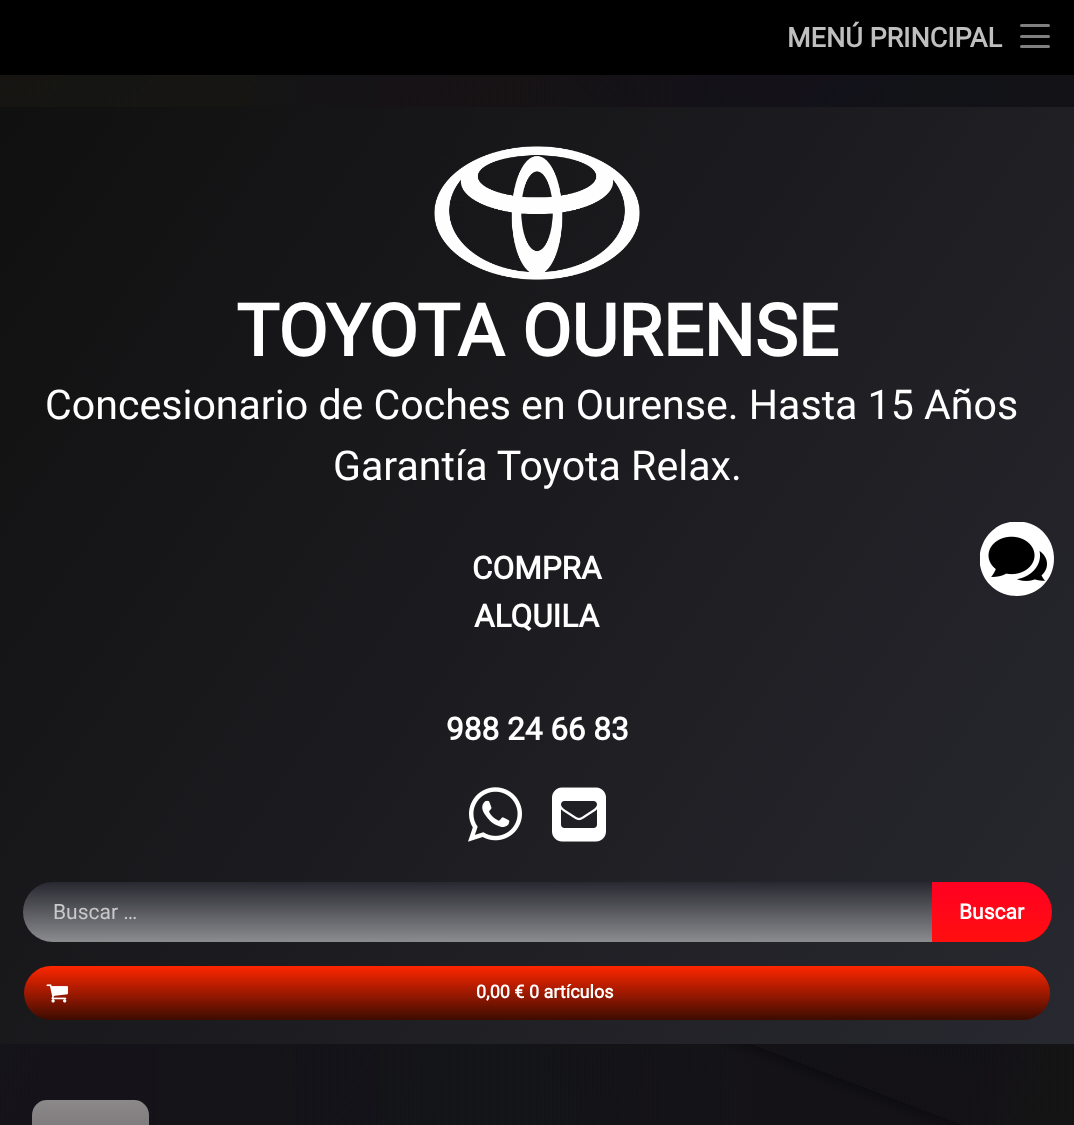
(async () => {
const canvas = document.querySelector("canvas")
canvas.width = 1074
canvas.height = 1125
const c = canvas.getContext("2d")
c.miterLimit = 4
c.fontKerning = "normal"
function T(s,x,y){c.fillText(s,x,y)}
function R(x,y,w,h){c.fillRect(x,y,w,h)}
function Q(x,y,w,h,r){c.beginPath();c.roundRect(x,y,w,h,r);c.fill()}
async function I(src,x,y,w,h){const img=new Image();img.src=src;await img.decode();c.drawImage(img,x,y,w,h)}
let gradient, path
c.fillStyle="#0a0a0c"
R(0,0,1074,1125)
c.fillStyle="#000"
R(0,0,1074,75)
c.font="bold 27px Roboto"
c.fillStyle="#bfbfbf"
T("MENÚ PRINCIPAL",787,47)
c.fillStyle="#808080"
Q(1020,24,30,3,1.5)
Q(1020,35,30,3,1.5)
Q(1020,45,30,3,1.5)
gradient = c.createLinearGradient(1025,-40,49,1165)
gradient.addColorStop(.73,"#280f1c26")
gradient.addColorStop(.76,"#0f172826")
gradient.addColorStop(.76,"#0f281826")
gradient.addColorStop(.76,"#0f192826")
c.fillStyle = gradient
R(0,75,1074,1050)
gradient = c.createLinearGradient(-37,603,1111,522)
gradient.addColorStop(.51,"#180f2826")
gradient.addColorStop(.64,"#0f281626")
gradient.addColorStop(.64,"#281d1026")
gradient.addColorStop(.66,"#280f1726")
c.fillStyle = gradient
R(0,75,1074,1050)
gradient = c.createLinearGradient(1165,696,-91,429)
gradient.addColorStop(.34,"#280f1726")
gradient.addColorStop(.47,"#0f281726")
gradient.addColorStop(.47,"#23281026")
gradient.addColorStop(.94,"#28251026")
c.fillStyle = gradient
R(0,75,1074,1050)
gradient = c.createLinearGradient(-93,138,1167,987)
gradient.addColorStop(.03,"#28111026")
gradient.addColorStop(.11,"#0f281726")
gradient.addColorStop(.11,"#281f1026")
gradient.addColorStop(.91,"#280f2126")
c.fillStyle = gradient
R(0,75,1074,1050)
gradient = c.createLinearGradient(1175,721,-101,404)
gradient.addColorStop(.41,"#280f1826")
gradient.addColorStop(.49,"#24281026")
gradient.addColorStop(.49,"#17281026")
gradient.addColorStop(.78,"#1e281026")
c.fillStyle = gradient
R(0,75,782,1050)
gradient = c.createLinearGradient(425,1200,649,-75)
gradient.addColorStop(.13,"#16281026")
gradient.addColorStop(.18,"#0f281e26")
gradient.addColorStop(.18,"#0f281726")
gradient.addColorStop(.84,"#0f282326")
c.fillStyle = gradient
R(0,75,1074,1050)
gradient = c.createLinearGradient(662,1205,412,-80)
gradient.addColorStop(.24,"#1f281026")
gradient.addColorStop(.36,"#0f282126")
gradient.addColorStop(.36,"#0f212826")
gradient.addColorStop(.98,"#0f281726")
c.fillStyle = gradient
R(0,75,1074,1050)
gradient = c.createLinearGradient(767,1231,307,-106)
gradient.addColorStop(.45,"#281b1026")
gradient.addColorStop(.56,"#1e0f2826")
gradient.addColorStop(.56,"#0f282226")
gradient.addColorStop(.94,"#1a0f2826")
c.fillStyle = gradient
R(0,75,1074,1050)
gradient = c.createLinearGradient(-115,909,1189,216)
gradient.addColorStop(.67,"#28121026")
gradient.addColorStop(.76,"#1d0f2826")
gradient.addColorStop(.76,"#1d0f2826")
gradient.addColorStop(.95,"#280f1126")
c.fillStyle = gradient
R(0,75,1074,795)
gradient = c.createLinearGradient(-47,1070,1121,55)
gradient.addColorStop(.71,"#28221026")
gradient.addColorStop(.75,"#280f1b26")
gradient.addColorStop(.75,"#280f2726")
gradient.addColorStop(.75,"#280f1e26")
c.fillStyle = gradient
R(0,75,889,582)
gradient = c.createLinearGradient(662,-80,412,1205)
gradient.addColorStop(.32,"#28221026")
gradient.addColorStop(.34,"#280f2326")
gradient.addColorStop(.34,"#280f1826")
gradient.addColorStop(.99,"#220f2826")
c.fillStyle = gradient
R(0,931,995,194)
gradient = c.createLinearGradient(1067,-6.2,6.7,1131)
gradient.addColorStop(.79,"#280f2126")
gradient.addColorStop(.84,"#1a0f2826")
gradient.addColorStop(.84,"#1e0f2826")
gradient.addColorStop(.84,"#150f2826")
c.fillStyle = gradient
R(0,734,419,391)
gradient = c.createLinearGradient(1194,855,-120,270)
gradient.addColorStop(.03,"#28271026")
gradient.addColorStop(.07,"#1f0f2826")
gradient.addColorStop(.07,"#0f112826")
gradient.addColorStop(.97,"#0f281826")
c.fillStyle = gradient
R(0,75,1074,1050)
gradient = c.createLinearGradient(1013,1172,61,-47)
gradient.addColorStop(.59,"#0f281426")
gradient.addColorStop(.63,"#0f1e2826")
gradient.addColorStop(.63,"#1c0f2826")
gradient.addColorStop(.63,"#280f1626")
c.fillStyle = gradient
R(378,75,696,1050)
gradient = c.createLinearGradient(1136,77,-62,1048)
gradient.addColorStop(.71,"#28241026")
gradient.addColorStop(.8,"#0f281d26")
gradient.addColorStop(.8,"#280f1f26")
gradient.addColorStop(.86,"#1f0f2826")
c.fillStyle = gradient
R(0,613,157,512)
gradient = c.createLinearGradient(821,-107,253,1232)
gradient.addColorStop(.5,"#28131026")
gradient.addColorStop(.59,"#0f182826")
gradient.addColorStop(.59,"#280f1e26")
gradient.addColorStop(.59,"#28121026")
c.fillStyle = gradient
R(0,457,1074,475)
gradient = c.createLinearGradient(-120,283,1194,842)
gradient.addColorStop(.35,"#280f1026")
gradient.addColorStop(.48,"#0f112826")
gradient.addColorStop(.48,"#0f142826")
gradient.addColorStop(.75,"#0f112826")
c.fillStyle = gradient
R(293,75,781,1050)
gradient = c.createLinearGradient(889,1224,185,-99)
gradient.addColorStop(.58,"#280f1126")
gradient.addColorStop(.61,"#240f2826")
gradient.addColorStop(.61,"#280f1326")
gradient.addColorStop(.83,"#280f1226")
c.fillStyle = gradient
R(0,401,490,268)
gradient = c.createLinearGradient(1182,748,-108,377)
gradient.addColorStop(.79,"#160f2826")
gradient.addColorStop(.8,"#280f1c26")
gradient.addColorStop(.8,"#28151026")
gradient.addColorStop(.93,"#28151026")
c.fillStyle = gradient
R(0,75,1074,1050)
gradient = c.createLinearGradient(280,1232,794,-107)
gradient.addColorStop(.23,"#0a0a0c40")
gradient.addColorStop(.24,"#04040580")
gradient.addColorStop(.24,"#07070840")
gradient.addColorStop(.91,"#07070840")
c.fillStyle = gradient
R(0,75,1074,1050)
gradient = c.createLinearGradient(-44,169,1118,982)
gradient.addColorStop(0,"#101010")
gradient.addColorStop(1,"#282830")
c.fillStyle = gradient
R(0,107,1074,937)
await I("1.png",434,146,206,134)
c.font="bold 72px Roboto"
c.fillStyle="#fff"
T("TOYOTA OURENSE",236,356)
c.font="41.1px Roboto"
T("Concesionario de Coches en Ourense. Hasta 15 Años",45,419)
T("Garantía Toyota Relax.",333,480)
c.font="bold 31.5px Roboto"
T("COMPRA",472,579)
T("ALQUILA",474,627)
T("988 24 66 83",446,740)
await I("2.png",468,787,54,55)
await I("3.png",552,787,54,55)
gradient = c.createLinearGradient(536,882,536,942)
gradient.addColorStop(0,"#282830")
gradient.addColorStop(1,"#8b8c90")
c.fillStyle = gradient
Q(23,882,1026,60,30)
c.font="21px Roboto"
c.fillStyle="#c9c9cb"
T("Buscar …",53,919)
gradient = c.createLinearGradient(992,882,992,942)
gradient.addColorStop(0,"#f02")
gradient.addColorStop(1,"#ff0f0f")
c.fillStyle = gradient
c.beginPath()
c.roundRect(932,882,120,60,[0,30,30,0])
c.fill()
c.font="bold 21px Roboto"
c.fillStyle="#fff"
T("Buscar",959,919)
gradient = c.createLinearGradient(537,966,537,1020)
gradient.addColorStop(0,"#ff2700")
gradient.addColorStop(1,"#3c0c00")
c.fillStyle = gradient
Q(24,966,1026,54,27)
await I("4.png",46,984,22,19)
c.font="bold 18px Roboto"
c.fillStyle="#fff"
T("0,00 € 0 artículos",476,998)
gradient = c.createLinearGradient(90,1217,90,1100)
gradient.addColorStop(0,"#524d51")
gradient.addColorStop(1,"#8c898b")
c.fillStyle = gradient
Q(32,1100,117,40,15)
c.fillStyle="#fff"
path = new Path2D("M980 553c3-16 14-28 30-31h14c18 3 30 19 30 37c0 20-16 37-37 37c-19 0-34-13-37-31z")
c.fill(path)
await I("5.png",988,536,59,45)
})()
